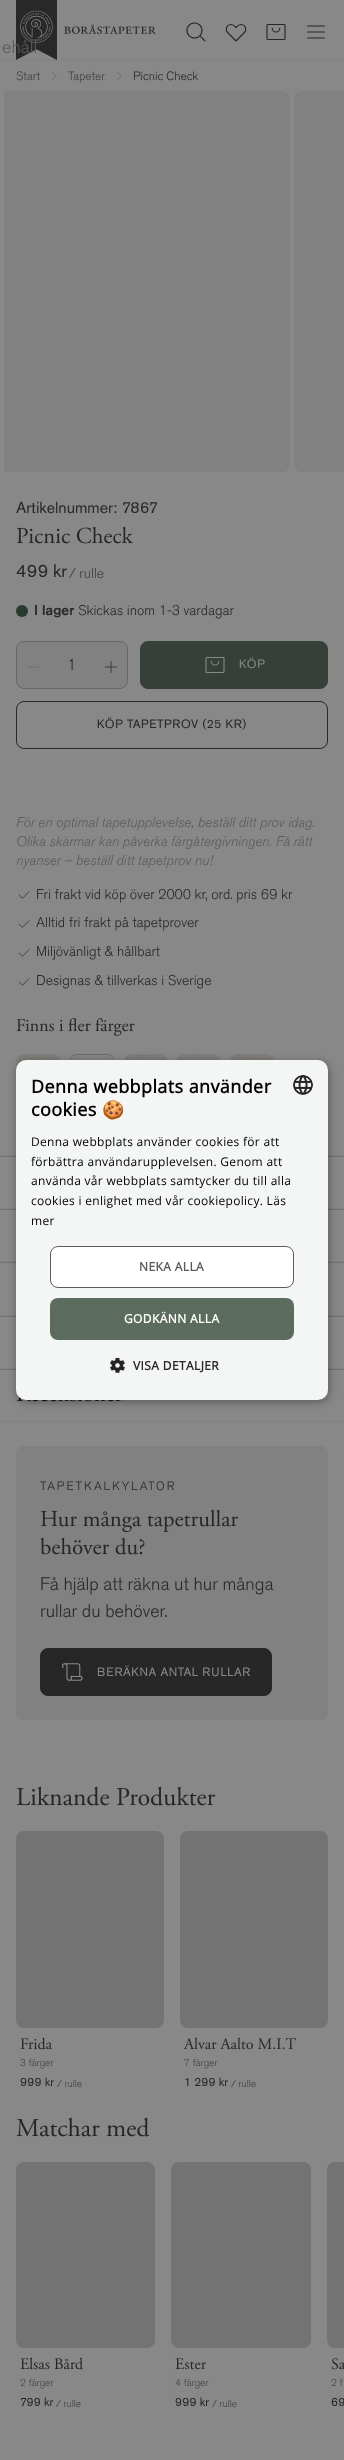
(async () => {
const canvas = document.querySelector("canvas")
canvas.width = 344
canvas.height = 2460
const c = canvas.getContext("2d")
c.miterLimit = 4
c.fontKerning = "normal"
function T(s,x,y){c.fillText(s,x,y)}
function R(x,y,w,h){c.fillRect(x,y,w,h)}
function Q(x,y,w,h,r){c.beginPath();c.roundRect(x,y,w,h,r);c.fill()}
async function I(src,x,y,w,h){const img=new Image();img.src=src;await img.decode();c.drawImage(img,x,y,w,h)}
c.fillStyle="#888"
R(0,0,344,2460)
await I("1.png",16,0,41,60)
c.font="300 18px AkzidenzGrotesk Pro"
c.fillStyle="#5b5b5a"
T("ehåll",2,53)
c.fillStyle="#818181"
R(0,60,344,1)
await I("2.png",64,24,92,10)
await I("3.png",186,22,20,20)
await I("4.png",225,24,22,18)
await I("5.png",266,24,20,16)
await I("6.png",307,25,18,14)
c.font="300 12px AkzidenzGrotesk Pro"
c.fillStyle="#414141"
T("Start",16,80)
await I("7.png",52,72,5,9)
T("Tapeter",68,80)
await I("7.png",117,72,5,9)
c.fillStyle="#272727"
T("Picnic Check",133,80)
c.fillStyle="#818181"
c.beginPath()
c.roundRect(4,91,286,381,[0,8,8,0])
c.fill()
c.beginPath()
c.roundRect(294,91,50,381,[8,0,0,8])
c.fill()
c.font="16px AkzidenzGrotesk Pro"
c.fillStyle="#272727"
T("Artikelnummer: 7867",16,513)
await I("8.png",17,526,116,18)
c.font="18px AkzidenzGrotesk Pro"
T("499 kr",16,577)
c.font="300 14px AkzidenzGrotesk Pro"
c.fillStyle="#414141"
T("/ rulle",69,578)
c.fillStyle="#273b2d"
c.beginPath()
c.arc(22,611,6,0,7)
c.fill()
c.font="500 14px AkzidenzGrotesk Pro"
c.fillStyle="#272727"
T("I lager",34,615)
c.font="300 14px AkzidenzGrotesk Pro"
T("Skickas inom 1-3 vardagar",78,615)
c.fillStyle="#818181"
c.beginPath()
c.roundRect(16.5,641.5,111,47,7.5)
c.fill()
c.strokeStyle="#676767"
c.stroke()
await I("9.png",27,666,12,2)
c.font="300 16px AkzidenzGrotesk Pro"
c.fillStyle="#272727"
T("1",67,670)
await I("10.png",105,661,12,12)
c.fillStyle="#363f38"
c.beginPath()
c.roundRect(140.5,641.5,187,47,7.5)
c.fill()
c.strokeStyle="#363f38"
c.stroke()
await I("11.png",205,657,20,16)
c.letterSpacing="0.5px"
c.font="12px AkzidenzGrotesk Pro"
c.fillStyle="#888"
T("KÖP",239,668)
c.beginPath()
c.roundRect(16.5,701.5,311,47,7.5)
c.strokeStyle="#272727"
c.stroke()
c.fillStyle="#272727"
T("KÖP TAPETPROV (25 KR)",97,728)
c.letterSpacing="0px"
c.font="italic 300 14px AkzidenzGrotesk Pro"
c.fillStyle="#5b5b5a"
T("För en optimal tapetupplevelse, beställ ditt prov idag.",16,827)
T("Olika skärmar kan påverka färgåtergivningen. Få rätt",16,846)
T("nyanser – beställ ditt tapetprov nu!",16,865)
await I("12.png",18,891,12,8)
c.font="300 14px AkzidenzGrotesk Pro"
c.fillStyle="#272727"
T("Fri frakt vid köp över 2000 kr, ord. pris 69 kr",36,899)
await I("12.png",18,920,12,8)
T("Alltid fri frakt på tapetprover",36,927)
await I("12.png",18,949,12,8)
T("Miljövänligt & hållbart",36,956)
await I("12.png",18,978,12,8)
T("Designas & tillverkas i Sverige",36,985)
await I("13.png",16,1018,119,18)
c.fillStyle="#818181"
Q(16,1054,45,61,8)
await I("14.png",17,1055,43,11)
c.beginPath()
c.roundRect(69.5,1054.5,45,60,7.5)
c.strokeStyle="#6b6b6b"
c.stroke()
await I("15.png",70,1055,43,5)
Q(123,1054,45,61,8)
await I("16.png",124,1055,43,5)
Q(176,1054,45,61,8)
await I("17.png",177,1055,43,5)
Q(229,1054,46,61,8)
await I("18.png",230,1055,43,5)
R(0,1155,344,1)
R(0,1208,344,1)
c.fillStyle="#737373"
R(0,1156,344,1)
c.fillStyle="#818181"
R(0,1261,344,1)
c.fillStyle="#737373"
R(0,1209,344,1)
c.fillStyle="#818181"
R(0,1315,344,1)
c.fillStyle="#737373"
R(0,1262,344,1)
c.fillStyle="#818181"
R(0,1368,344,1)
c.fillStyle="#737373"
R(0,1316,344,1)
c.fillStyle="#818181"
R(0,1421,344,1)
c.fillStyle="#737373"
R(0,1369,344,1)
await I("19.png",16,1396,105,6)
await I("20.png",319,1399,2,1)
c.fillStyle="#818181"
Q(16,1446,312,274,8)
c.letterSpacing="1.9px"
c.font="300 12px AkzidenzGrotesk Pro"
c.fillStyle="#272727"
T("TAPETKALKYLATOR",40,1490)
await I("21.png",40,1509,198,24)
await I("22.png",40,1537,105,18)
c.letterSpacing="0px"
c.font="300 18px AkzidenzGrotesk Pro"
T("Få hjälp att räkna ut hur många",40,1590)
T("rullar du behöver.",40,1617)
c.beginPath()
c.roundRect(40.5,1648.5,231,47,7.5)
c.fill()
c.strokeStyle="#272727"
c.stroke()
await I("23.png",62,1663,21,18)
c.letterSpacing="0.5px"
c.font="12px AkzidenzGrotesk Pro"
c.fillStyle="#888"
T("BERÄKNA ANTAL RULLAR",97,1676)
await I("24.png",16,1786,200,20)
c.fillStyle="#737373"
Q(16,1831,148,197,8)
await I("25.png",20,2037,33,13)
c.letterSpacing="0px"
c.font="300 10px AkzidenzGrotesk Pro"
c.fillStyle="#414141"
T("3 färger",20,2066)
c.font="12px AkzidenzGrotesk Pro"
c.fillStyle="#272727"
T("999 kr",20,2086)
c.font="300 10px AkzidenzGrotesk Pro"
c.fillStyle="#414141"
T("/ rulle",57,2087)
c.fillStyle="#737373"
Q(180,1831,148,197,8)
await I("26.png",184,2037,112,13)
c.fillStyle="#414141"
T("7 färger",184,2066)
c.font="12px AkzidenzGrotesk Pro"
c.fillStyle="#272727"
T("1 299 kr",184,2086)
c.font="300 10px AkzidenzGrotesk Pro"
c.fillStyle="#414141"
T("/ rulle",231,2087)
await I("27.png",16,2117,134,20)
c.fillStyle="#737373"
Q(16,2162,139,186,8)
await I("28.png",20,2357,63,13)
c.fillStyle="#414141"
T("2 färger",20,2386)
c.font="12px AkzidenzGrotesk Pro"
c.fillStyle="#272727"
T("799 kr",20,2406)
c.font="300 10px AkzidenzGrotesk Pro"
c.fillStyle="#414141"
T("/ rulle",56,2407)
c.fillStyle="#737373"
Q(171,2162,140,186,8)
await I("29.png",175,2358,31,12)
c.fillStyle="#414141"
T("4 färger",175,2386)
c.font="12px AkzidenzGrotesk Pro"
c.fillStyle="#272727"
T("999 kr",175,2406)
c.font="300 10px AkzidenzGrotesk Pro"
c.fillStyle="#414141"
T("/ rulle",212,2407)
c.fillStyle="#737373"
c.beginPath()
c.roundRect(327,2162,17,186,[8,0,0,8])
c.fill()
await I("30.png",331,2358,13,12)
c.fillStyle="#414141"
T("2 f",331,2386)
c.font="12px AkzidenzGrotesk Pro"
c.fillStyle="#272727"
T("69",331,2406)
c.fillStyle="#00000059"
c.filter="blur(4px)"
c.beginPath()
c.roundRect(17,1062,312,340,10)
c.fill()
c.filter="none"
c.fillStyle="#f3f6f4"
Q(16,1060,312,340,10)
c.letterSpacing="0.4px"
c.font="bold 18px Open Sans"
c.fillStyle="#000"
T("Denna webbplats använder",31,1093)
T("cookies",31,1116)
c.font="bold 18px Noto Color Emoji"
T("🍪",102,1116)
await I("31.png",293,1075,20,20)
c.letterSpacing="0.3px"
c.font="12px Open Sans"
T("Denna webbplats använder cookies för att",31,1146)
T("förbättra användarupplevelsen. Genom att",31,1166)
T("använda vår webbplats samtycker du till alla",31,1185)
T("cookies i enlighet med vår cookiepolicy. Läs",31,1205)
T("mer",31,1225)
c.fillStyle="#fff"
c.beginPath()
c.roundRect(50.5,1246.5,243,41,7.5)
c.fill()
c.strokeStyle="#5b5b5b"
c.stroke()
c.letterSpacing="0.4px"
c.font="bold 12px Open Sans"
c.fillStyle="#5b5b5a"
T("NEKA ALLA",139,1271)
c.fillStyle="#5b6c5e"
Q(50,1298,244,42,8)
c.fillStyle="#fff"
T("GODKÄNN ALLA",124,1323)
await I("32.png",110,1358,15,15)
c.fillStyle="#272727"
T("VISA DETALJER",133,1370)
})()
